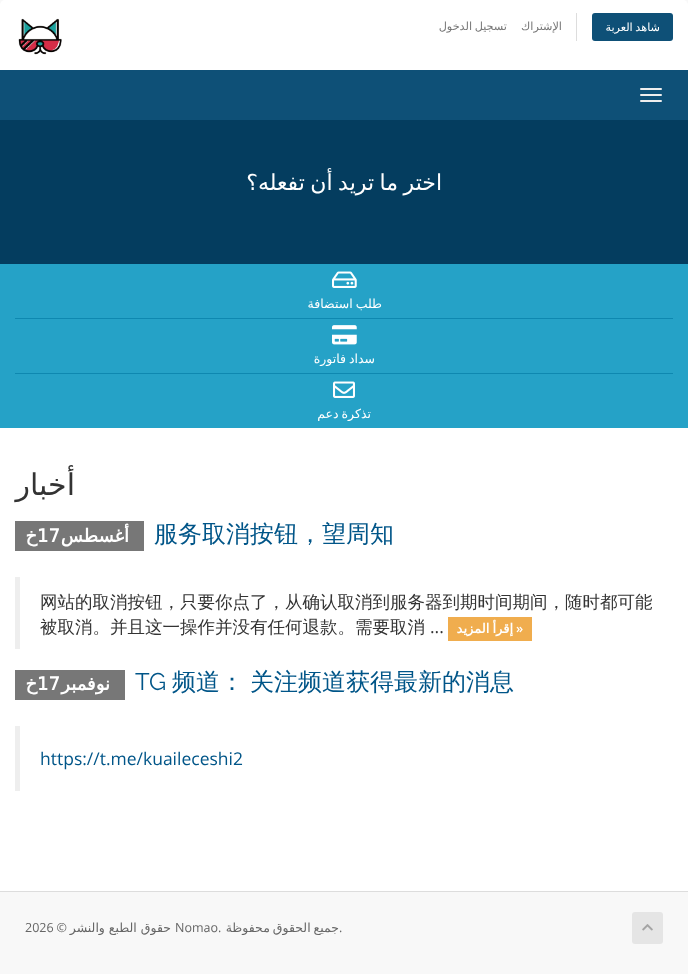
(async () => {
const canvas = document.querySelector("canvas")
canvas.width = 688
canvas.height = 974
const c = canvas.getContext("2d")
c.miterLimit = 4
c.fontKerning = "normal"
function T(s,x,y){c.fillText(s,x,y)}
function R(x,y,w,h){c.fillRect(x,y,w,h)}
function Q(x,y,w,h,r){c.beginPath();c.roundRect(x,y,w,h,r);c.fill()}
async function I(src,x,y,w,h){const img=new Image();img.src=src;await img.decode();c.drawImage(img,x,y,w,h)}
c.fillStyle="#f8f8f8"
R(0,0,688,974)
c.fillStyle="#fff"
c.beginPath()
c.roundRect(0,0,688,70,[5,5,0,0])
c.fill()
c.fillStyle="#ddd"
R(576,13,1,28)
c.fillStyle="#0e5077"
Q(592,13,81,28,3)
c.wordSpacing="-1px"
c.direction="rtl"
c.font="11.25px DejaVu Sans"
c.fillStyle="#fff"
T("شاهد العربة",660,31)
c.wordSpacing="0px"
c.fillStyle="#777"
T("الإشتراك",562,30)
c.wordSpacing="-1px"
T("تسجيل الدخول",507,30)
await I("1.png",18,18,44,37)
c.fillStyle="#0e5077"
R(0,70,688,50)
c.fillStyle="#eee"
Q(640,88,22,2,1)
Q(640,94,22,2,1)
Q(640,100,22,2,1)
c.fillStyle="#043d5f"
R(0,120,688,144)
c.wordSpacing="-1.5px"
c.font="22px DejaVu Sans"
c.fillStyle="#fff"
T("اختر ما تريد أن تفعله؟",442,190)
c.fillStyle="#25a2c7"
R(0,264,688,164)
c.fillStyle="#0e88b0"
R(15,318,658,1)
await I("2.png",332,271,25,17)
c.wordSpacing="-1px"
c.font="12.5px DejaVu Sans"
c.fillStyle="#fff"
T("طلب استضافة",382,308)
c.fillStyle="#0e88b0"
R(15,373,658,1)
await I("3.png",332,325,25,20)
c.fillStyle="#fff"
T("سداد فاتورة",375,363)
await I("4.png",333,381,22,17)
T("تذكرة دعم",371,418)
R(0,428,688,463)
c.wordSpacing="0px"
c.font="30px DejaVu Sans"
c.fillStyle="#333"
T("أخبار",75,495)
c.direction="ltr"
c.font="500 24px WenQuanYi Zen Hei"
c.fillStyle="#058"
T("服务取消按钮，望周知",154,542)
c.fillStyle="#777"
R(15,521,129,30)
c.direction="rtl"
c.font="bold 18px DejaVu Sans"
c.fillStyle="#fff"
T("أغسطس",129,542)
c.direction="ltr"
T("17",37,542)
c.direction="rtl"
T("خ",37,542)
c.fillStyle="#eee"
R(15,577,5,72)
c.direction="ltr"
c.font="500 17.5px WenQuanYi Zen Hei"
c.fillStyle="#333"
T("网站的取消按钮，只要你点了，从确认取消到服务器到期时间期间，随时都可能",40,608)
c.fillStyle="#f0ad4e"
R(448,617,84,24)
c.font="600 13px Open Sans"
c.fillStyle="#fff"
T("»",516,633)
c.wordSpacing="-1px"
c.direction="rtl"
c.font="bold 13px DejaVu Sans"
T("إقرأ المزيد",513,633)
c.wordSpacing="0px"
c.direction="ltr"
c.font="17.5px Open Sans"
c.fillStyle="#333"
T("...",430,633)
c.font="500 17.5px WenQuanYi Zen Hei"
T("被取消。并且这一操作并没有任何退款。需要取消",40,633)
c.font="500 24px WenQuanYi Zen Hei"
c.fillStyle="#058"
T("关注频道获得最新的消息",250,690)
T("频道：",172,690)
c.font="24px Raleway"
T("TG",135,690)
c.fillStyle="#777"
R(15,670,110,30)
c.direction="rtl"
c.font="bold 18px DejaVu Sans"
c.fillStyle="#fff"
T("نوفمبر",110,690)
c.direction="ltr"
T("17",37,690)
c.direction="rtl"
T("خ",37,690)
c.fillStyle="#eee"
R(15,726,5,65)
c.direction="ltr"
c.font="17.5px Open Sans"
c.fillStyle="#058"
T("https://t.me/kuaileceshi2",40,765)
c.fillStyle="#ddd"
R(0,891,688,1)
c.fillStyle="#e5e5e5"
Q(632,912,31,32,3)
await I("5.png",642,924,11,7)
c.font="12.5px Open Sans"
c.fillStyle="#666"
T(".",339,932)
c.wordSpacing="-1px"
c.direction="rtl"
c.font="12.5px DejaVu Sans"
T("جميع الحقوق محفوظة",339,932)
c.wordSpacing="0px"
c.direction="ltr"
c.font="12.5px Open Sans"
T("Nomao.",175,932)
c.direction="rtl"
c.font="12.5px DejaVu Sans"
T("حقوق الطبع والنشر",171,932)
c.font="12.5px Open Sans"
T("©",67,932)
c.direction="ltr"
T("2026",25,932)
})()
